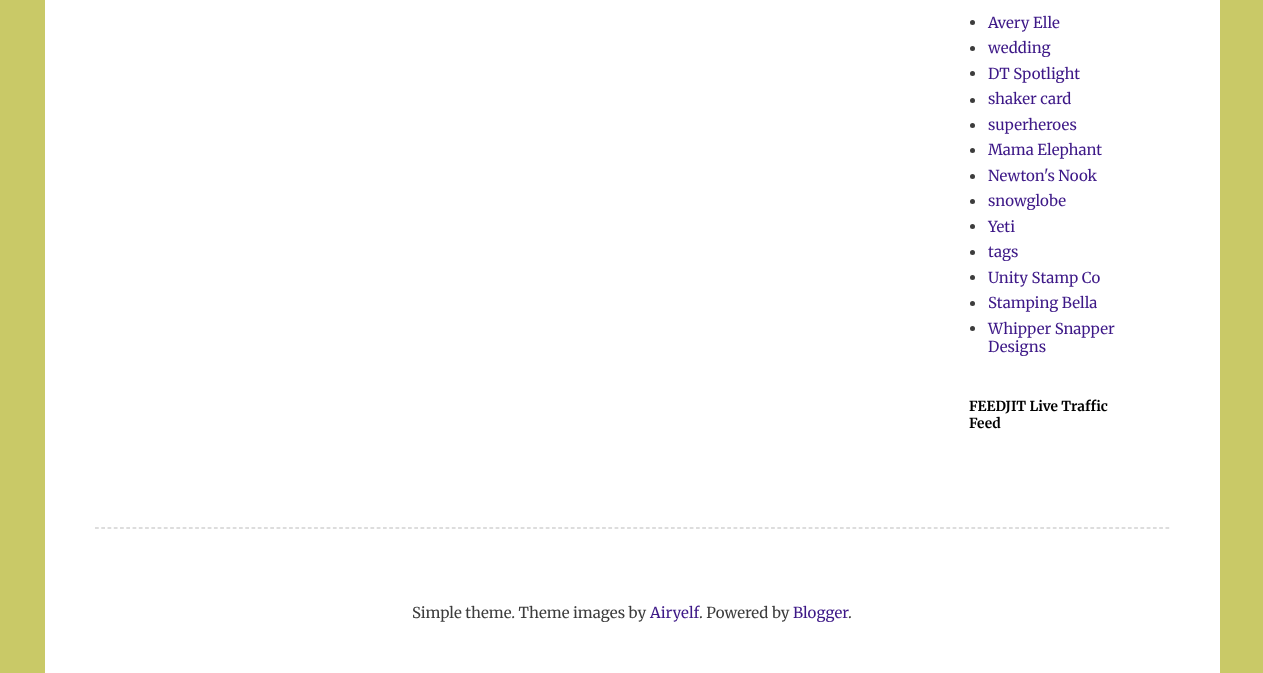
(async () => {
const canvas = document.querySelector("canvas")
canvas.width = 1263
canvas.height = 673
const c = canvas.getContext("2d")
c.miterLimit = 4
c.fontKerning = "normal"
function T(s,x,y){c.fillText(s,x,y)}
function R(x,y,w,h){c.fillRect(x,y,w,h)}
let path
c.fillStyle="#c9c967"
R(0,0,1263,673)
c.fillStyle="#fff"
R(45,0,1175,673)
c.fillStyle="#3c3c3c"
c.beginPath()
c.arc(972.5,22.5,2.5,0,7)
c.fill()
c.font="15px Merriweather"
c.fillStyle="#3d1887"
T("Avery Elle",988,28)
c.fillStyle="#3c3c3c"
c.beginPath()
c.arc(972.5,48.5,2.5,0,7)
c.fill()
c.fillStyle="#3d1887"
T("wedding",988,53)
c.fillStyle="#3c3c3c"
c.beginPath()
c.arc(972.5,73.5,2.5,0,7)
c.fill()
c.fillStyle="#3d1887"
T("DT Spotlight",988,79)
c.fillStyle="#3c3c3c"
c.beginPath()
c.arc(972.5,100.5,2.5,0,7)
c.fill()
c.fillStyle="#3d1887"
T("shaker card",988,104)
c.fillStyle="#3c3c3c"
c.beginPath()
c.arc(972.5,125.5,2.5,0,7)
c.fill()
c.fillStyle="#3d1887"
T("superheroes",988,130)
c.fillStyle="#3c3c3c"
c.beginPath()
c.arc(972.5,150.5,2.5,0,7)
c.fill()
c.fillStyle="#3d1887"
T("Mama Elephant",988,155)
c.fillStyle="#3c3c3c"
c.beginPath()
c.arc(972.5,176.5,2.5,0,7)
c.fill()
c.fillStyle="#3d1887"
T("Newton's Nook",988,181)
c.fillStyle="#3c3c3c"
c.beginPath()
c.arc(972.5,201.5,2.5,0,7)
c.fill()
c.fillStyle="#3d1887"
T("snowglobe",988,206)
c.fillStyle="#3c3c3c"
c.beginPath()
c.arc(972.5,226.5,2.5,0,7)
c.fill()
c.fillStyle="#3d1887"
T("Yeti",988,232)
c.fillStyle="#3c3c3c"
c.beginPath()
c.arc(972.5,252.5,2.5,0,7)
c.fill()
c.fillStyle="#3d1887"
T("tags",988,257)
c.fillStyle="#3c3c3c"
c.beginPath()
c.arc(972.5,277.5,2.5,0,7)
c.fill()
c.fillStyle="#3d1887"
T("Unity Stamp Co",988,283)
c.fillStyle="#3c3c3c"
c.beginPath()
c.arc(972.5,303.5,2.5,0,7)
c.fill()
c.fillStyle="#3d1887"
T("Stamping Bella",988,308)
c.fillStyle="#3c3c3c"
c.beginPath()
c.arc(972.5,328.5,2.5,0,7)
c.fill()
c.fillStyle="#3d1887"
T("Whipper Snapper",988,334)
T("Designs",988,352)
c.font="bold 13.75px Merriweather"
c.fillStyle="#000"
T("FEEDJIT Live Traffic",969,411)
T("Feed",969,428)
path = new Path2D("M95 528h1075")
c.strokeStyle="#bbb"
c.lineWidth=1.2
c.setLineDash([3.75,2.51])
c.stroke(path)
c.font="15px Merriweather"
c.fillStyle="#3c3c3c"
T("Simple theme. Theme images by",412,618)
c.fillStyle="#3d1887"
T("Airyelf",650,618)
c.fillStyle="#3c3c3c"
T(". Powered by",699,618)
c.fillStyle="#3d1887"
T("Blogger",793,618)
c.fillStyle="#3c3c3c"
T(".",848,618)
})()
